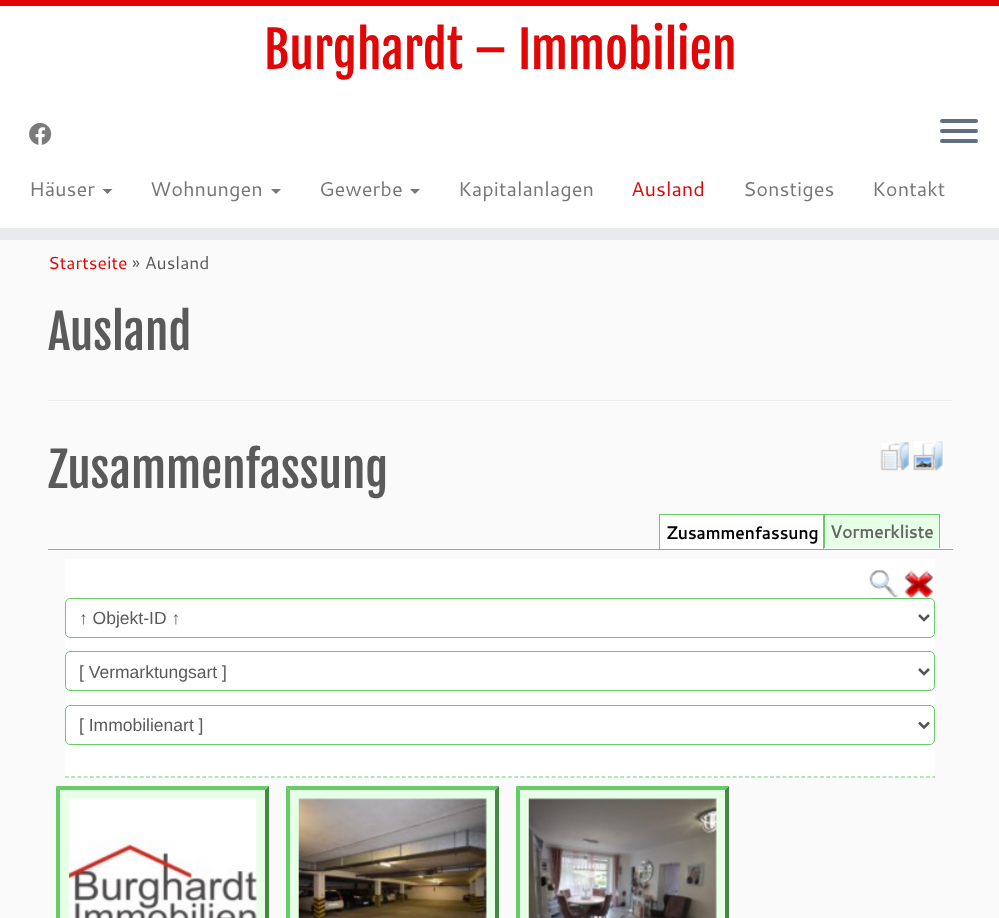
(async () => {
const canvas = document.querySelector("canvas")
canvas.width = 999
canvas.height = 918
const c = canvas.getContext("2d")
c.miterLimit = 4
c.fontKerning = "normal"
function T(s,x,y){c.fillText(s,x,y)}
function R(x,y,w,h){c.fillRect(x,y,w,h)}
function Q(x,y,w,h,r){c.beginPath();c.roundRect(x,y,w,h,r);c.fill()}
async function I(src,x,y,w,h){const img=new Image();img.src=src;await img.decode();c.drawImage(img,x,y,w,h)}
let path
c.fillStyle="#fafafa"
R(0,0,999,918)
c.fillStyle="#fff"
R(0,6,999,222)
c.fillStyle="#e10707"
R(0,0,999,6)
c.fillStyle="#e9eaee"
R(0,228,999,12)
c.font="50px Fjalla One"
c.fillStyle="#e10707"
T("Burghardt – Immobilien",264,69)
await I("1.png",29,123,23,22)
c.fillStyle="#5f6f81"
Q(940,119,38,4,2)
Q(940,129,38,4,2)
Q(940,139,38,4,2)
c.font="20px Cantarell"
c.fillStyle="#777"
T("Häuser",29,196)
path = new Path2D("M102.5 189h10l-5 5z")
c.fill(path)
T("Wohnungen",150,196)
path = new Path2D("M271 189h10l-5 5z")
c.fill(path)
T("Gewerbe",319,196)
path = new Path2D("M410 189h10l-5 5z")
c.fill(path)
T("Kapitalanlagen",458,196)
c.fillStyle="#e10707"
T("Ausland",631,196)
c.fillStyle="#777"
T("Sonstiges",743,196)
T("Kontakt",872,196)
c.font="17.5px Cantarell"
c.fillStyle="#e10707"
T("Startseite",48,269)
c.fillStyle="#5a5a5a"
T("» Ausland",132,269)
c.font="47.5px Fjalla One"
T("Ausland",48,350)
c.fillStyle="#eee"
R(48,400,905,1)
c.fillStyle="#fff"
R(48,401,905,1)
c.fillStyle="#5a5a5a"
T("Zusammenfassung",48,488)
c.fillStyle="#fff"
R(914,441,30,30)
await I("2.png",913,441,30,30)
R(881,443,28,27)
await I("3.png",880,442,29,29)
c.fillStyle="#6c6"
R(48,549,905,1)
c.fillStyle="#fff"
R(660,515,163,34)
c.font="bold 17.5px Cantarell"
c.fillStyle="#000"
T("Zusammenfassung",666,539)
c.fillStyle="#6c6"
R(659,514,281,1)
R(823,514,1,35)
R(659,514,1,35)
c.fillStyle="#e6ffe6"
R(825,515,114,33)
c.fillStyle="#666"
T("Vormerkliste",830,538)
c.fillStyle="#6c6"
R(939,514,1,34)
R(824,514,1,34)
c.fillStyle="#fff"
R(65,559,870,219)
path = new Path2D("M65 777h870")
c.strokeStyle="#6c6"
c.lineWidth=1.2
c.setLineDash([3.75,2.49])
c.stroke(path)
c.beginPath()
c.roundRect(65.5,598.5,869,39,4.5)
c.lineWidth=1
c.setLineDash([])
c.stroke()
c.fillStyle="#0000000d"
c.filter="blur(1px)"
c.beginPath()
c.roundRect(870,571,30,28,5)
c.fill()
c.filter="none"
c.fillStyle="#fff"
Q(870,570,30,28,5)
await I("4.png",869,569,29,29)
c.fillStyle="#ffffff33"
path = new Path2D("M875 571h17c5.5 0 7.5 1.5 8 4.5c0-5.5-4-5.5-8.5-5.5h-13c-4.5 0-8.5 0-8.5 5.5c.5-2.5 2-4.5 5-4.5z")
c.fill(path)
c.fillStyle="#0000000d"
c.filter="blur(1px)"
c.beginPath()
c.roundRect(905,571,30,28,5)
c.fill()
c.filter="none"
c.fillStyle="#fff"
Q(905,570,30,28,5)
await I("5.png",904,570,29,28)
c.fillStyle="#ffffff33"
path = new Path2D("M910 571h17c5.5 0 7.5 1.5 8 4.5c0-5.5-4-5.5-8.5-5.5h-13c-4.5 0-8.5 0-8.5 5.5c.5-2.5 2-4.5 5-4.5z")
c.fill(path)
path = new Path2D("M919 615l5 5l5-5")
c.strokeStyle="#555"
c.lineWidth=2.5
c.stroke(path)
c.font="17.5px Liberation Sans"
c.fillStyle="#5a5a5a"
T("↑ Objekt-ID ↑",79,624)
c.beginPath()
c.roundRect(65.5,651.5,869,39,4.5)
c.strokeStyle="#6c6"
c.lineWidth=1
c.stroke()
path = new Path2D("M919 669l5 5l5-5")
c.strokeStyle="#555"
c.lineWidth=2.5
c.stroke(path)
T("[ Vermarktungsart ]",79,678)
c.beginPath()
c.roundRect(65.5,705.5,869,39,4.5)
c.strokeStyle="#6c6"
c.lineWidth=1
c.stroke()
path = new Path2D("M919 722.5l5 5l5-5")
c.strokeStyle="#555"
c.lineWidth=2.5
c.stroke(path)
T("[ Immobilienart ]",79,731)
c.fillStyle="#e6ffe6"
R(56,786,213,132)
c.fillStyle="#6c6"
path = new Path2D("M56 786h213l-4 4h-205z")
c.fill(path)
c.fillStyle="#484"
path = new Path2D("M269 786v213l-4-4v-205z")
c.fill(path)
c.fillStyle="#6c6"
path = new Path2D("M56 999v-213l4 4v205z")
c.fill(path)
await I("6.png",69,798,188,120)
c.fillStyle="#e6ffe6"
R(286,786,213,132)
c.fillStyle="#6c6"
path = new Path2D("M286 786h213l-4 4h-205z")
c.fill(path)
c.fillStyle="#484"
path = new Path2D("M499 786v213l-4-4v-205z")
c.fill(path)
c.fillStyle="#6c6"
path = new Path2D("M286 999v-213l4 4v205z")
c.fill(path)
await I("7.png",298,798,189,120)
c.fillStyle="#e6ffe6"
R(516,786,213,132)
c.fillStyle="#6c6"
path = new Path2D("M516 786h213l-4 4h-205z")
c.fill(path)
c.fillStyle="#484"
path = new Path2D("M729 786v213l-4-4v-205z")
c.fill(path)
c.fillStyle="#6c6"
path = new Path2D("M516 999v-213l4 4v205z")
c.fill(path)
await I("8.png",528,798,189,120)
})()
